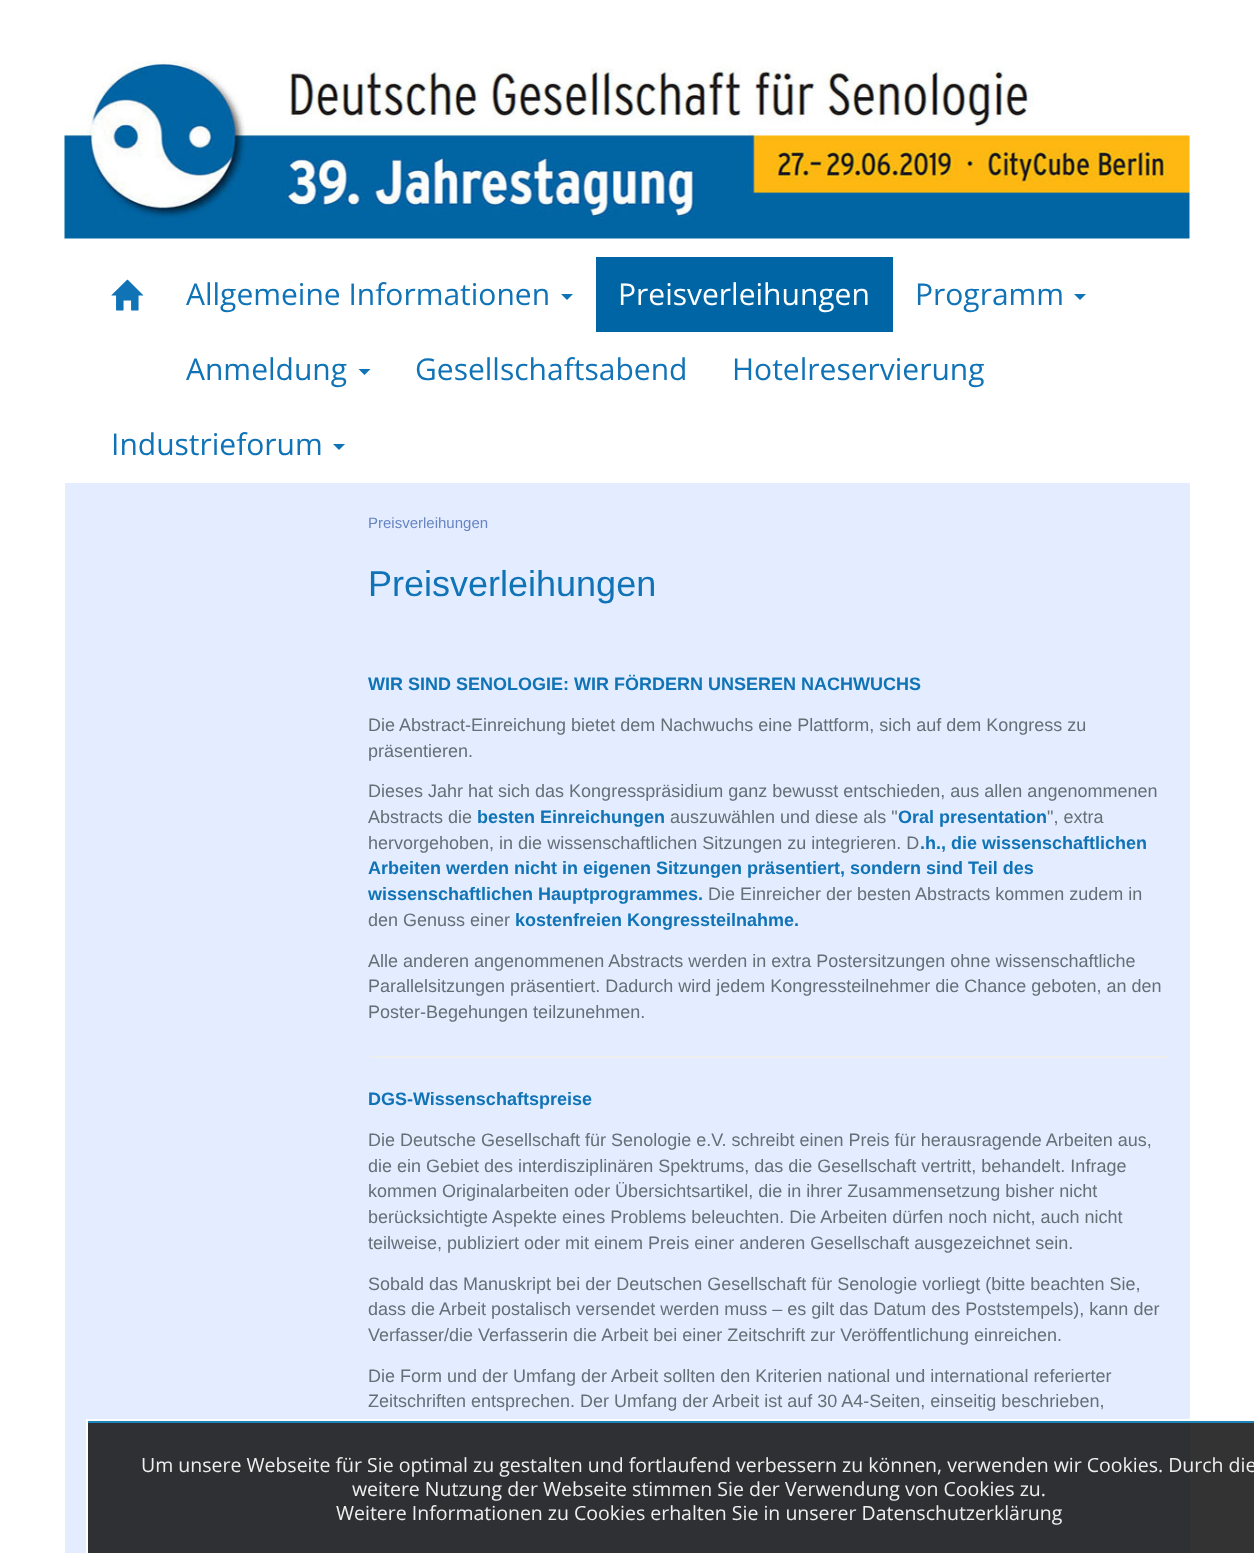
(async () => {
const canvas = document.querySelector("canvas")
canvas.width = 1254
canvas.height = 1553
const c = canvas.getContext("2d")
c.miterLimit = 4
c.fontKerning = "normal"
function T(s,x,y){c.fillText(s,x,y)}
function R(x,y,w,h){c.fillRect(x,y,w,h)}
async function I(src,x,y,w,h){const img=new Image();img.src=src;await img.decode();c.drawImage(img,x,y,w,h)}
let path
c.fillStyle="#fff"
R(0,0,1254,1553)
await I("1.png",64,59,1126,180)
await I("2.png",111,279,33,32)
c.font="30px Open Sans"
c.fillStyle="#1073b6"
T("Allgemeine Informationen",186,305)
path = new Path2D("M561 294h12l-6 6z")
c.fill(path)
c.fillStyle="#0065a4"
R(596,257,297,75)
c.fillStyle="#fff"
T("Preisverleihungen",618,305)
c.fillStyle="#1073b6"
T("Programm",915,305)
path = new Path2D("M1074 294h12l-6 6z")
c.fill(path)
T("Anmeldung",186,380)
path = new Path2D("M358.5 369h12l-6 6z")
c.fill(path)
T("Gesellschaftsabend",415,380)
T("Hotelreservierung",732,380)
T("Industrieforum",111,455)
path = new Path2D("M333 444h12l-6 6z")
c.fill(path)
c.fillStyle="#e3edff"
R(65,483,1125,1070)
c.font="15px Liberation Sans"
c.fillStyle="#6885c3"
T("Preisverleihungen",368,528)
c.font="36px Liberation Sans"
c.fillStyle="#1073b6"
T("Preisverleihungen",368,596)
c.font="bold 18px Liberation Sans"
T("WIR SIND SENOLOGIE: WIR FÖRDERN UNSEREN NACHWUCHS",368,690)
c.font="18px Liberation Sans"
c.fillStyle="#646f76"
T("Die Abstract-Einreichung bietet dem Nachwuchs eine Plattform, sich auf dem Kongress zu",368,731)
T("präsentieren.",368,757)
T("Dieses Jahr hat sich das Kongresspräsidium ganz bewusst entschieden, aus allen angenommenen",368,797)
T("Abstracts die",368,823)
c.font="bold 18px Liberation Sans"
c.fillStyle="#1073b6"
T("besten Einreichungen",477,823)
c.font="18px Liberation Sans"
c.fillStyle="#646f76"
T("auszuwählen und diese als \"",670,823)
c.font="bold 18px Liberation Sans"
c.fillStyle="#1073b6"
T("Oral presentation",898,823)
c.font="18px Liberation Sans"
c.fillStyle="#646f76"
T("\", extra",1047,823)
T("hervorgehoben, in die wissenschaftlichen Sitzungen zu integrieren. D",368,849)
c.font="bold 18px Liberation Sans"
c.fillStyle="#1073b6"
T(".h., die wissenschaftlichen",920,849)
T("Arbeiten werden nicht in eigenen Sitzungen präsentiert, sondern sind Teil des",368,874)
T("wissenschaftlichen Hauptprogrammes.",368,900)
c.font="18px Liberation Sans"
c.fillStyle="#646f76"
T("Die Einreicher der besten Abstracts kommen zudem in",708,900)
T("den Genuss einer",368,926)
c.font="bold 18px Liberation Sans"
c.fillStyle="#1073b6"
T("kostenfreien Kongressteilnahme.",515,926)
c.font="18px Liberation Sans"
c.fillStyle="#646f76"
T("Alle anderen angenommenen Abstracts werden in extra Postersitzungen ohne wissenschaftliche",368,967)
T("Parallelsitzungen präsentiert. Dadurch wird jedem Kongressteilnehmer die Chance geboten, an den",368,992)
T("Poster-Begehungen teilzunehmen.",368,1018)
c.fillStyle="#eee"
R(369,1056,798,2)
c.font="bold 18px Liberation Sans"
c.fillStyle="#1073b6"
T("DGS-Wissenschaftspreise",368,1105)
c.font="18px Liberation Sans"
c.fillStyle="#646f76"
T("Die Deutsche Gesellschaft für Senologie e.V. schreibt einen Preis für herausragende Arbeiten aus,",368,1146)
T("die ein Gebiet des interdisziplinären Spektrums, das die Gesellschaft vertritt, behandelt. Infrage",368,1172)
T("kommen Originalarbeiten oder Übersichtsartikel, die in ihrer Zusammensetzung bisher nicht",368,1197)
T("berücksichtigte Aspekte eines Problems beleuchten. Die Arbeiten dürfen noch nicht, auch nicht",368,1223)
T("teilweise, publiziert oder mit einem Preis einer anderen Gesellschaft ausgezeichnet sein.",368,1249)
T("Sobald das Manuskript bei der Deutschen Gesellschaft für Senologie vorliegt (bitte beachten Sie,",368,1290)
T("dass die Arbeit postalisch versendet werden muss – es gilt das Datum des Poststempels), kann der",368,1315)
T("Verfasser/die Verfasserin die Arbeit bei einer Zeitschrift zur Veröffentlichung einreichen.",368,1341)
T("Die Form und der Umfang der Arbeit sollten den Kriterien national und international referierter",368,1382)
T("Zeitschriften entsprechen. Der Umfang der Arbeit ist auf 30 A4-Seiten, einseitig beschrieben,",368,1407)
c.fillStyle="#000000cc"
R(88,1423,1166,130)
c.fillStyle="#1c84b9"
R(87,1421,1167,2)
c.strokeStyle="#fff"
c.lineWidth=2
c.strokeRect(87,1420,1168,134)
c.font="19.5px Open Sans"
c.fillStyle="#efefef"
T("Um unsere Webseite für Sie optimal zu gestalten und fortlaufend verbessern zu können, verwenden wir Cookies. Durch die",141,1472)
T("weitere Nutzung der Webseite stimmen Sie der Verwendung von Cookies zu.",352,1496)
T("Weitere Informationen zu Cookies erhalten Sie in unserer Datenschutzerklärung",336,1520)
})()
